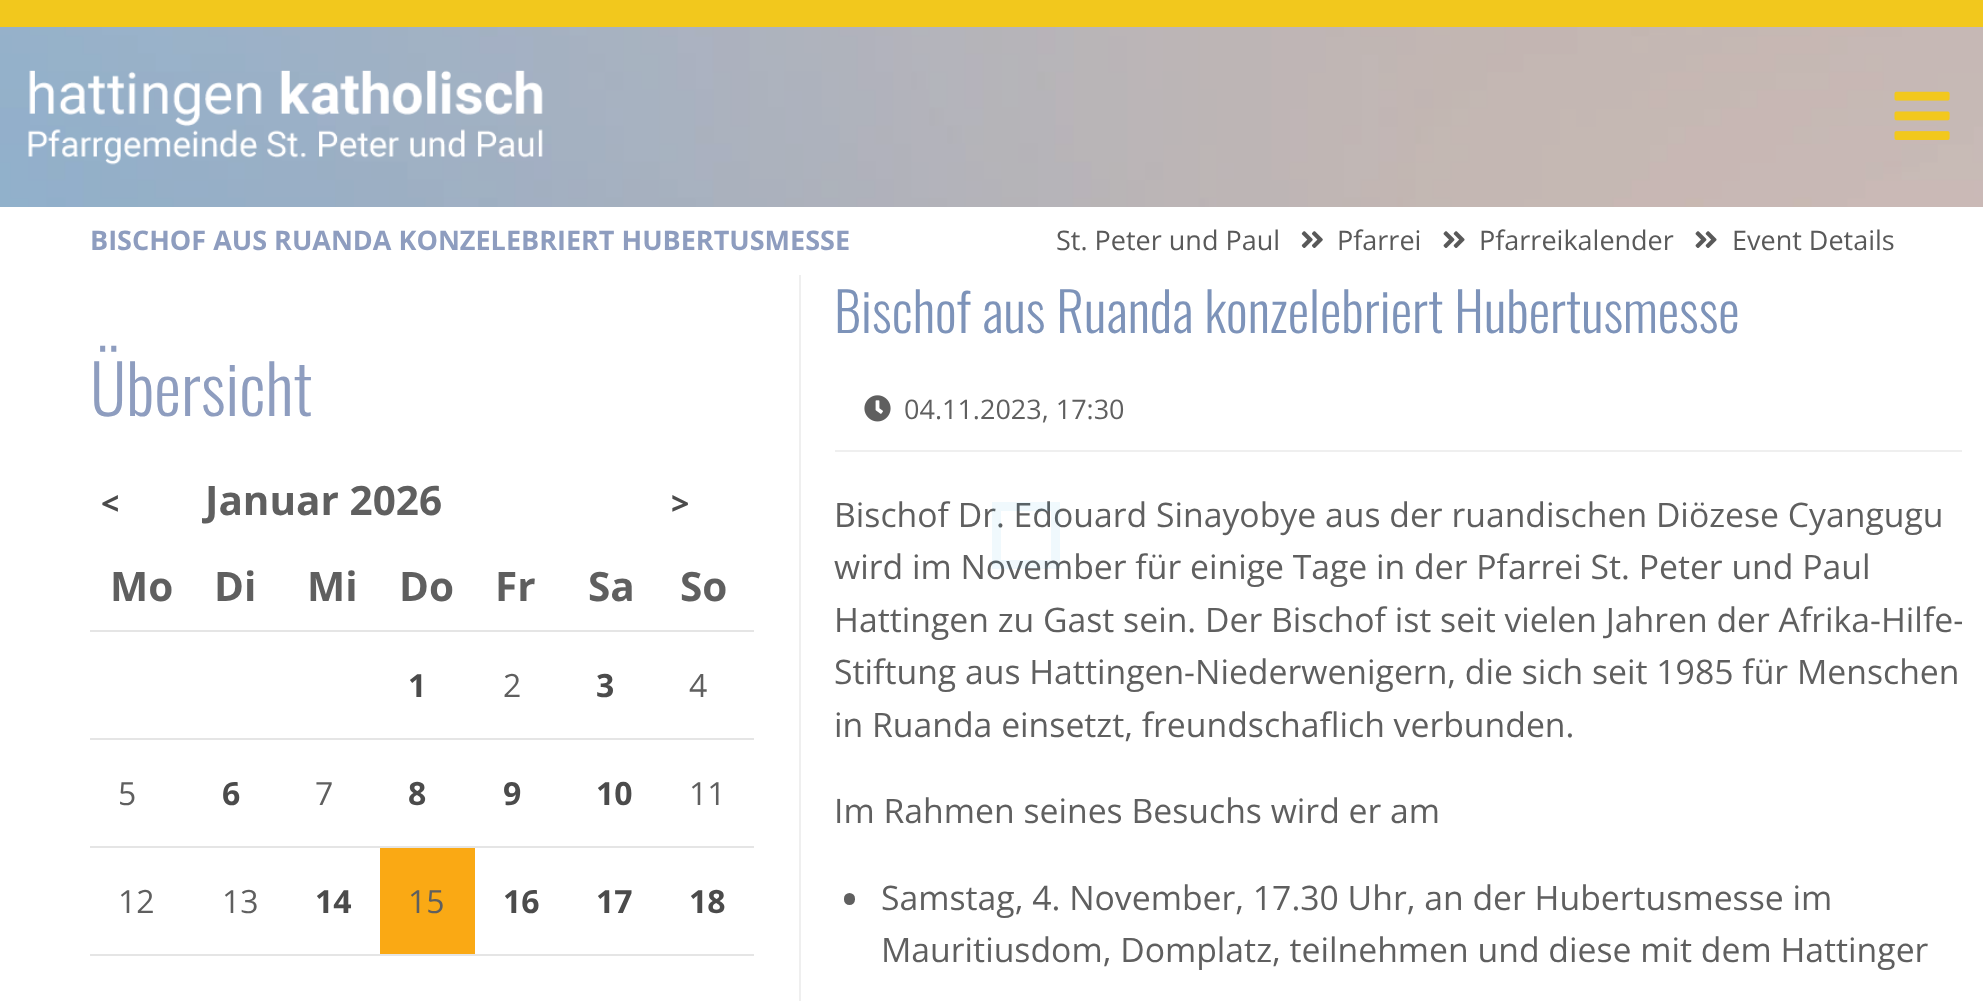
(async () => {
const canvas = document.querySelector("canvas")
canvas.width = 1983
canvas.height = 1001
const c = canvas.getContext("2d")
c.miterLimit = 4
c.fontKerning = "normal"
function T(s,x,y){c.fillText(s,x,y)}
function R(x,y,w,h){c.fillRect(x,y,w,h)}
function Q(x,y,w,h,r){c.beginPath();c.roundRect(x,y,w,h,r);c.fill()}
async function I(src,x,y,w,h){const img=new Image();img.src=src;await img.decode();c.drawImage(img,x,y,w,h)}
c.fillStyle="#fff"
R(0,0,1983,1001)
await I("1.png",0,27,1983,180)
c.fillStyle="#f2c81d"
R(0,0,1983,27)
await I("2.png",28,70,515,95)
await I("3.png",1894,91,56,49)
c.font="bold 27px Open Sans"
c.fillStyle="#8e9dbf"
T("BISCHOF AUS RUANDA KONZELEBRIERT HUBERTUSMESSE",90,250)
c.font="27px Open Sans"
c.fillStyle="#595959"
T("St. Peter und Paul",1056,250)
await I("4.png",1301,231,22,17)
T("Pfarrei",1337,250)
await I("5.png",1443,231,22,17)
T("Pfarreikalender",1479,250)
await I("5.png",1695,231,22,17)
T("Event Details",1732,250)
c.fillStyle="#efefef"
R(799,275,2,726)
c.font="300 67.5px Oswald"
c.fillStyle="#8e9dbf"
T("Übersicht",90,416)
c.font="bold 32px Open Sans"
c.fillStyle="#4b4b4b"
T("<",101,515)
c.font="bold 40.5px Open Sans"
c.fillStyle="#5f5f5f"
T("Januar 2026",205,515)
c.font="bold 32px Open Sans"
c.fillStyle="#4b4b4b"
T(">",671,515)
c.font="bold 40.5px Open Sans"
c.fillStyle="#5f5f5f"
T("Mo",110,601)
T("Di",214,601)
T("Mi",307,601)
T("Do",399,601)
T("Fr",495,601)
T("Sa",588,601)
T("So",680,601)
c.font="bold 32px Open Sans"
c.fillStyle="#4b4b4b"
T("1",408,697)
c.font="32px Open Sans"
c.fillStyle="#5f5f5f"
T("2",503,697)
c.font="bold 32px Open Sans"
c.fillStyle="#4b4b4b"
T("3",596,697)
c.fillStyle="#e5e5e5"
R(90,630,664,2)
c.font="32px Open Sans"
c.fillStyle="#5f5f5f"
T("4",689,697)
T("5",118,805)
c.font="bold 32px Open Sans"
c.fillStyle="#4b4b4b"
T("6",222,805)
c.font="32px Open Sans"
c.fillStyle="#5f5f5f"
T("7",315,805)
c.font="bold 32px Open Sans"
c.fillStyle="#4b4b4b"
T("8",408,805)
T("9",503,805)
T("10",596,805)
c.fillStyle="#e5e5e5"
R(90,738,664,2)
c.font="32px Open Sans"
c.fillStyle="#5f5f5f"
T("11",689,805)
T("12",118,913)
T("13",222,913)
c.font="bold 32px Open Sans"
c.fillStyle="#4b4b4b"
T("14",315,913)
c.fillStyle="#faa914"
R(380,848,95,106)
c.font="32px Open Sans"
c.fillStyle="#5f5f5f"
T("15",408,913)
c.font="bold 32px Open Sans"
c.fillStyle="#4b4b4b"
T("16",503,913)
T("17",596,913)
c.fillStyle="#e5e5e5"
R(90,846,664,2)
c.fillStyle="#4b4b4b"
T("18",689,913)
c.fillStyle="#e5e5e5"
R(90,954,664,2)
c.font="300 54px Oswald"
c.fillStyle="#7d93b9"
T("Bischof aus Ruanda konzelebriert Hubertusmesse",834,333)
c.fillStyle="#efefef"
R(835,450,1127,2)
await I("6.png",864,395,27,27)
c.font="27px Open Sans"
c.fillStyle="#5f5f5f"
T("04.11.2023, 17:30",904,419)
c.font="33.75px Open Sans"
T("Bischof Dr. Edouard Sinayobye aus der ruandischen Diözese Cyangugu",834,527)
T("wird im November für einige Tage in der Pfarrei St. Peter und Paul",834,579)
c.save()
c.beginPath()
c.rect(835,488,1127,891)
c.clip()
T("Hattingen zu Gast sein. Der Bischof ist seit vielen Jahren der Afrika-Hilfe-",834,632)
c.restore()
T("Stiftung aus Hattingen-Niederwenigern, die sich seit 1985 für Menschen",834,684)
T("in Ruanda einsetzt, freundschaflich verbunden.",834,737)
T("Im Rahmen seines Besuchs wird er am",834,823)
Q(844,893,11,12,5.5)
T("Samstag, 4. November, 17.30 Uhr, an der Hubertusmesse im",881,910)
T("Mauritiusdom, Domplatz, teilnehmen und diese mit dem Hattinger",881,962)
c.strokeStyle="#0096d90f"
c.lineWidth=9
c.strokeRect(996.5,506.5,59,58)
})()
